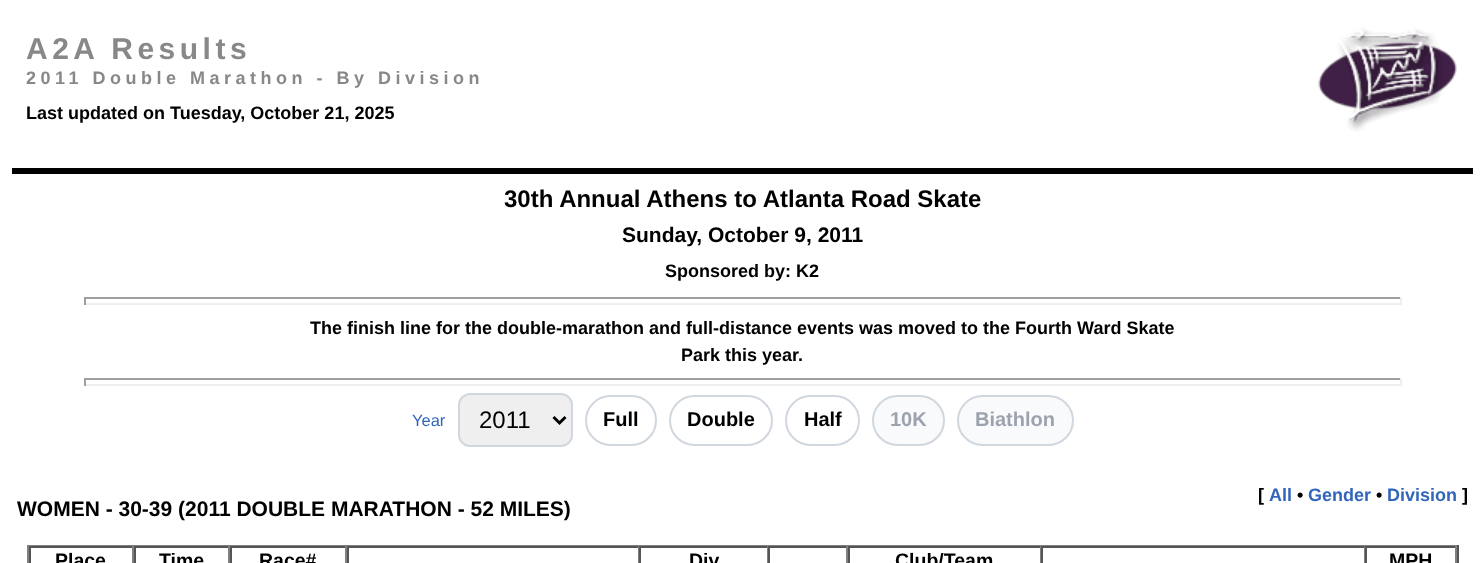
(async () => {
const canvas = document.querySelector("canvas")
canvas.width = 1484
canvas.height = 563
const c = canvas.getContext("2d")
c.miterLimit = 4
c.fontKerning = "normal"
function T(s,x,y){c.fillText(s,x,y)}
function R(x,y,w,h){c.fillRect(x,y,w,h)}
async function I(src,x,y,w,h){const img=new Image();img.src=src;await img.decode();c.drawImage(img,x,y,w,h)}
let path
c.fillStyle="#fff"
R(0,0,1484,563)
c.letterSpacing="4.5px"
c.font="bold 30px Liberation Sans"
c.fillStyle="#888"
T("A2A Results",26,59)
c.font="bold 18px Liberation Sans"
T("2011 Double Marathon - By Division",26,84)
c.letterSpacing="0px"
c.fillStyle="#000"
T("Last updated on Tuesday, October 21, 2025",26,119)
await I("1.png",1318,27,139,105)
R(12,168,1461,6)
c.font="bold 24px Liberation Sans"
T("30th Annual Athens to Atlanta Road Skate",504,207)
c.font="bold 21px Liberation Sans"
T("Sunday, October 9, 2011",622,242)
c.font="bold 18px Liberation Sans"
T("Sponsored by: K2",665,277)
c.fillStyle="#9f9f9f"
R(84,297,1317,2)
c.fillStyle="#eee"
R(1400,297,2,8)
R(84,303,1317,2)
c.fillStyle="#9f9f9f"
R(84,297,2,8)
c.fillStyle="#000"
T("The finish line for the double-marathon and full-distance events was moved to the Fourth Ward Skate",310,334)
T("Park this year.",681,361)
c.fillStyle="#9f9f9f"
R(84,378,1317,2)
c.fillStyle="#eee"
R(1400,378,2,8)
R(84,384,1317,2)
c.fillStyle="#9f9f9f"
R(84,378,2,8)
c.font="16.5px Liberation Sans"
c.fillStyle="#36b"
T("Year",412,426)
c.fillStyle="#efefef"
c.beginPath()
c.roundRect(459,394,113,52,11)
c.fill()
c.strokeStyle="#d0d7de"
c.lineWidth=2
c.stroke()
path = new Path2D("M553.5 417l6 6l6-6")
c.strokeStyle="#000"
c.lineWidth=3
c.stroke(path)
c.font="24px Liberation Sans"
c.fillStyle="#000"
T("2011",479,428)
c.beginPath()
c.roundRect(586,396,70,49,24.5)
c.strokeStyle="#d0d7de"
c.lineWidth=2
c.stroke()
c.font="bold 20px Liberation Sans"
T("Full",603,426)
c.beginPath()
c.roundRect(670,396,102,49,24.5)
c.stroke()
T("Double",687,426)
c.beginPath()
c.roundRect(786,396,73,49,24.5)
c.stroke()
T("Half",804,426)
c.fillStyle="#f9fafb"
c.beginPath()
c.roundRect(873,396,71,49,24.5)
c.fill()
c.stroke()
c.fillStyle="#9ca3af"
T("10K",890,426)
c.fillStyle="#f9fafb"
c.beginPath()
c.roundRect(958,396,115,49,24.5)
c.fill()
c.stroke()
c.fillStyle="#9ca3af"
T("Biathlon",975,426)
c.font="bold 18px Liberation Sans"
c.fillStyle="#000"
T("[",1258,501)
c.fillStyle="#36b"
T("All",1269,501)
c.fillStyle="#000"
T("•",1297,501)
c.fillStyle="#36b"
T("Gender",1308,501)
c.fillStyle="#000"
T("•",1376,501)
c.fillStyle="#36b"
T("Division",1387,501)
c.fillStyle="#000"
T("]",1462,501)
c.font="bold 21px Liberation Sans"
T("WOMEN - 30-39 (2011 DOUBLE MARATHON - 52 MILES)",17,516)
c.fillStyle="#808080"
R(27,545,1431,1)
c.fillStyle="#555"
R(1457,545,2,18)
c.fillStyle="#808080"
R(27,545,2,18)
c.fillStyle="#555"
R(29,546,1428,2)
c.fillStyle="#808080"
R(132,546,2,17)
c.fillStyle="#555"
R(29,546,2,17)
c.font="bold 19.5px Liberation Sans"
c.fillStyle="#000"
T("Place",55,567)
c.fillStyle="#808080"
R(228,546,2,17)
c.fillStyle="#555"
R(134,546,2,17)
c.fillStyle="#000"
T("Time",159,567)
c.fillStyle="#808080"
R(345,546,2,17)
c.fillStyle="#555"
R(230,546,2,17)
c.fillStyle="#000"
T("Race#",259,567)
c.fillStyle="#808080"
R(638,546,1,17)
c.fillStyle="#555"
R(347,546,2,17)
c.fillStyle="#808080"
R(767,546,1,17)
c.fillStyle="#555"
R(639,546,2,17)
c.fillStyle="#000"
T("Div",689,567)
c.fillStyle="#808080"
R(846,546,2,17)
c.fillStyle="#555"
R(768,546,2,17)
c.fillStyle="#808080"
R(1040,546,1,17)
c.fillStyle="#555"
R(848,546,2,17)
c.fillStyle="#000"
T("Club/Team",895,567)
c.fillStyle="#808080"
R(1364,546,1,17)
c.fillStyle="#555"
R(1041,546,2,17)
c.fillStyle="#808080"
R(1455,546,2,17)
c.fillStyle="#555"
R(1365,546,2,17)
c.fillStyle="#000"
T("MPH",1389,567)
})()
